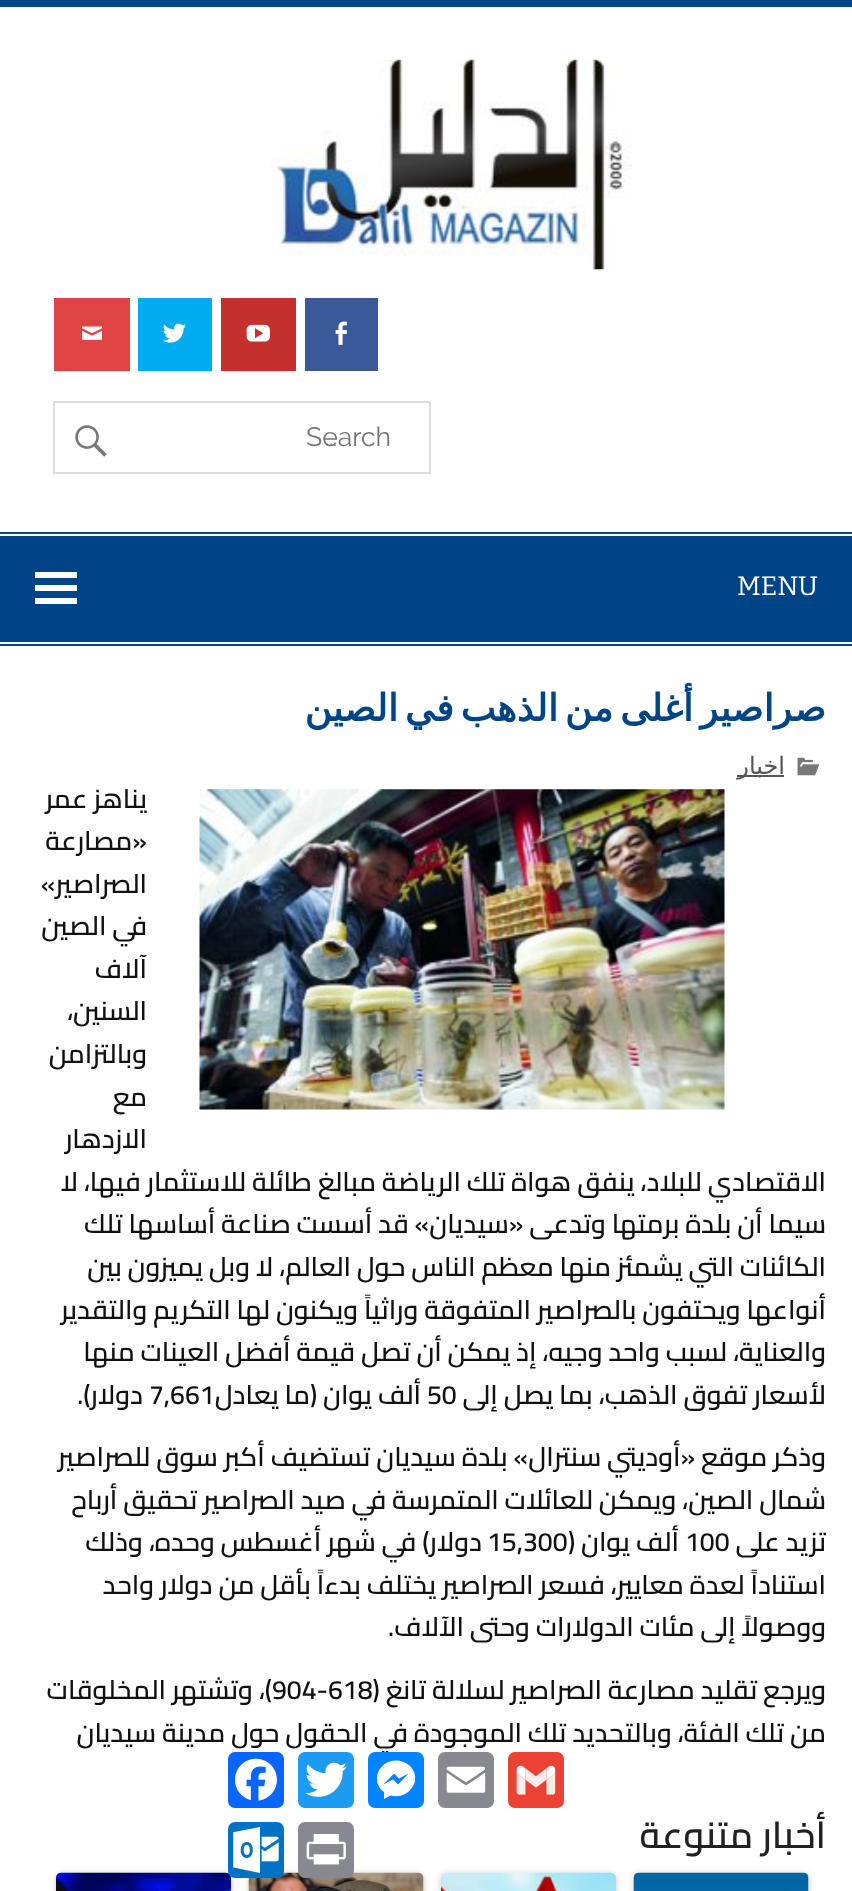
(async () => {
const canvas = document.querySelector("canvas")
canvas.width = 852
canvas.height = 1891
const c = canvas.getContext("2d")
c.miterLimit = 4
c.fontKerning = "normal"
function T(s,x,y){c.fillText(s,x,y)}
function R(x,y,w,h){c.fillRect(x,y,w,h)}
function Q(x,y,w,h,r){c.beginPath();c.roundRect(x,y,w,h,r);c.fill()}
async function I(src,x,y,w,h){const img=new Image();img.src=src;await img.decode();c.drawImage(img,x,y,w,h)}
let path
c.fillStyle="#fff"
R(0,0,852,1891)
c.fillStyle="#048"
R(0,0,852,7)
await I("1.png",270,59,362,211)
c.fillStyle="#3b5998"
R(305,298,73,73)
await I("2.png",335,321,12,24)
c.fillStyle="#c4302b"
R(221,298,75,73)
await I("3.png",246,324,24,18)
c.fillStyle="#00aced"
R(138,298,74,73)
await I("4.png",162,323,24,20)
c.fillStyle="#d44"
R(54,298,76,73)
await I("5.png",82,326,21,14)
c.strokeStyle="#ddd"
c.lineWidth=2
c.strokeRect(54,402,376,71)
c.font="26.6px Raleway"
c.fillStyle="#757575"
T("Search",306,446)
T("…",325,446)
await I("6.png",75,425,32,32)
c.fillStyle="#048"
R(0,532,852,2)
R(0,644,852,2)
R(0,536,852,106)
c.font="26.6px Bitter"
c.fillStyle="#fff"
T("MENU",737,595)
path = new Path2D("M35 604v-6h42v6zm0-32h42v6h-42zm0 19v-6h42v6z")
c.fill(path)
c.wordSpacing="-5px"
c.direction="rtl"
c.font="bold 37.25px DejaVu Sans"
c.fillStyle="#048"
T("صراصير أغلى من الذهب في الصين",826,721)
await I("7.png",797,757,23,19)
c.fillStyle="#555"
R(737,775,47,2)
c.wordSpacing="0px"
c.font="24px DejaVu Sans"
T("اخبار",785,774)
c.font="600 26.6px Cairo"
c.fillStyle="#111"
T("يناهز عمر",147,808)
T("«مصارعة",147,850)
T("الصراصير»",147,893)
T("في الصين",147,935)
T("آلاف",147,978)
T("السنين،",147,1020)
T("وبالتزامن",147,1063)
T("مع",147,1106)
T("الازدهار",147,1148)
T("الاقتصادي للبلاد، ينفق هواة تلك الرياضة مبالغ طائلة للاستثمار فيها، لا",826,1191)
T("سيما أن بلدة برمتها وتدعى «سيديان» قد أسست صناعة أساسها تلك",826,1233)
T("الكائنات التي يشمئز منها معظم الناس حول العالم، لا وبل يميزون بين",826,1276)
T("أنواعها ويحتفون بالصراصير المتفوقة وراثياً ويكنون لها التكريم والتقدير",826,1319)
T("والعناية، لسبب واحد وجيه، إذ يمكن أن تصل قيمة أفضل العينات منها",826,1361)
T("لأسعار تفوق الذهب، بما يصل إلى",826,1404)
c.direction="ltr"
T("50",427,1404)
c.direction="rtl"
T("ألف يوان (ما يعادل",421,1404)
c.direction="ltr"
T("7,661",149,1404)
c.direction="rtl"
T("دولار).",143,1404)
T("وذكر موقع «أوديتي سنترال» بلدة سيديان تستضيف أكبر سوق للصراصير",826,1466)
T("شمال الصين، ويمكن للعائلات المتمرسة في صيد الصراصير تحقيق أرباح",826,1509)
T("تزيد على",826,1551)
c.direction="ltr"
T("100",685,1551)
c.direction="rtl"
T("ألف يوان (",679,1551)
c.direction="ltr"
T("15,300",487,1551)
c.direction="rtl"
T("دولار) في شهر أغسطس وحده، وذلك",482,1551)
T("استناداً لعدة معايير، فسعر الصراصير يختلف بدءاً بأقل من دولار واحد",826,1594)
T("ووصولاً إلى مئات الدولارات وحتى الآلاف.",826,1636)
T("ويرجع تقليد مصارعة الصراصير لسلالة تانغ (",826,1699)
c.direction="ltr"
T("904-618",272,1699)
c.direction="rtl"
T(")، وتشتهر المخلوقات",272,1699)
T("من تلك الفئة، وبالتحديد تلك الموجودة في الحقول حول مدينة سيديان",826,1742)
await I("8.png",199,789,526,321)
c.font="600 37.25px Cairo"
c.fillStyle="#222"
T("أخبار متنوعة",826,1848)
c.fillStyle="#00000033"
c.filter="blur(3.5px)"
c.beginPath()
c.roundRect(634,1874,175,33,5)
c.fill()
c.filter="none"
await I("9.png",633,1872,176,19)
c.filter="blur(3.5px)"
c.beginPath()
c.roundRect(441,1874,175,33,5)
c.fill()
c.filter="none"
await I("10.png",441,1872,175,19)
c.filter="blur(3.5px)"
c.beginPath()
c.roundRect(249,1874,175,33,5)
c.fill()
c.filter="none"
await I("11.png",248,1872,176,19)
c.filter="blur(3.5px)"
c.beginPath()
c.roundRect(56,1874,175,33,5)
c.fill()
c.filter="none"
await I("12.png",56,1872,175,19)
c.fillStyle="#ea4335"
Q(508,1752,56,56,7)
await I("13.png",516,1765,40,30)
c.fillStyle="#888990"
Q(438,1752,56,56,7)
await I("14.png",446,1766,40,27)
c.fillStyle="#0084ff"
Q(368,1752,56,56,7)
c.fillStyle="#fff"
path = new Path2D("M396 1760.5c-17.5 0-26 21-12 31.5v7l6.5-3.5c18 5 33.5-16 19-30c-3.5-3-8.5-5-13.5-5m2 24l-5-5l-9.5 5l10.5-11l5 5l9.5-5z")
c.fill(path)
c.fillStyle="#1d9bf0"
Q(298,1752,56,56,7)
await I("15.png",305,1762,42,35)
c.fillStyle="#0866ff"
Q(228,1752,56,56,7)
await I("16.png",234,1758,43,43)
c.fillStyle="#888990"
Q(298,1822,56,56,7)
await I("17.png",306,1834,40,31)
c.fillStyle="#0072c6"
Q(228,1822,56,56,7)
await I("18.png",233,1827,46,46)
})()
